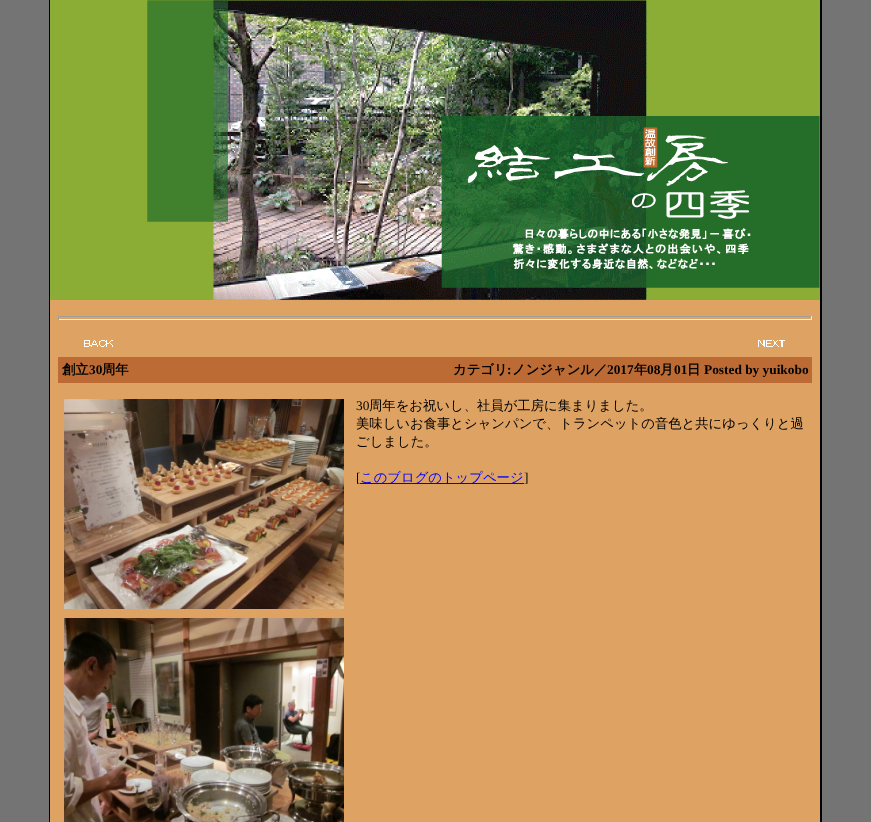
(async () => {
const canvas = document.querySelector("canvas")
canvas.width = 871
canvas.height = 822
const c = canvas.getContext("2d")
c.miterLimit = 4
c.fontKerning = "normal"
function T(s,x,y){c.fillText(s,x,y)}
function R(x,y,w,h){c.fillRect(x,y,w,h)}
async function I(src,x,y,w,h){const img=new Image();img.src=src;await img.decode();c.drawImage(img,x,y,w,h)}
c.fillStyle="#747474"
R(0,0,871,822)
c.fillStyle="#000"
R(820,0,2,822)
R(49,0,1,822)
await I("1.png",50,0,770,300)
c.fillStyle="#dea263"
R(50,300,770,522)
c.fillStyle="#9f9f9f"
R(58,316,754,1)
c.fillStyle="#eee"
R(811,316,1,4)
R(58,319,754,1)
c.fillStyle="#9f9f9f"
R(58,316,1,4)
await I("2.png",84,340,29,7)
await I("3.png",758,340,27,7)
c.fillStyle="#bd6b34"
R(58,357,754,26)
c.font="bold 13.35px WenQuanYi Zen Hei"
c.fillStyle="#000"
T("創立",62,374)
c.font="bold 13.35px Liberation Serif"
T("30",89,374)
c.font="bold 13.35px WenQuanYi Zen Hei"
T("周年",102,374)
T("カテゴリ",453,374)
c.font="bold 13.35px Liberation Serif"
T(":",507,374)
c.font="bold 13.35px WenQuanYi Zen Hei"
T("ノンジャンル／",512,374)
c.font="bold 13.35px Liberation Serif"
T("2017",607,374)
c.font="bold 13.35px WenQuanYi Zen Hei"
T("年",634,374)
c.font="bold 13.35px Liberation Serif"
T("08",647,374)
c.font="bold 13.35px WenQuanYi Zen Hei"
T("月",660,374)
c.font="bold 13.35px Liberation Serif"
T("01",674,374)
c.font="bold 13.35px WenQuanYi Zen Hei"
T("日",687,374)
c.font="bold 13.35px Liberation Serif"
T("Posted by yuikobo",704,374)
await I("4.png",64,399,280,210)
await I("5.png",64,618,280,204)
c.font="13.35px Liberation Serif"
T("30",356,410)
c.font="500 13.35px WenQuanYi Zen Hei"
T("周年をお祝いし、社員が工房に集まりました。",369,410)
T("美味しいお食事とシャンパンで、トランペットの音色と共にゆっくりと過",356,428)
T("ごしました。",356,446)
c.font="13.35px Liberation Serif"
T("[",356,482)
c.fillStyle="#00f"
R(360,483,164,1)
c.font="500 13.35px WenQuanYi Zen Hei"
T("このブログのトップページ",360,482)
c.font="13.35px Liberation Serif"
c.fillStyle="#000"
T("]",524,482)
})()
